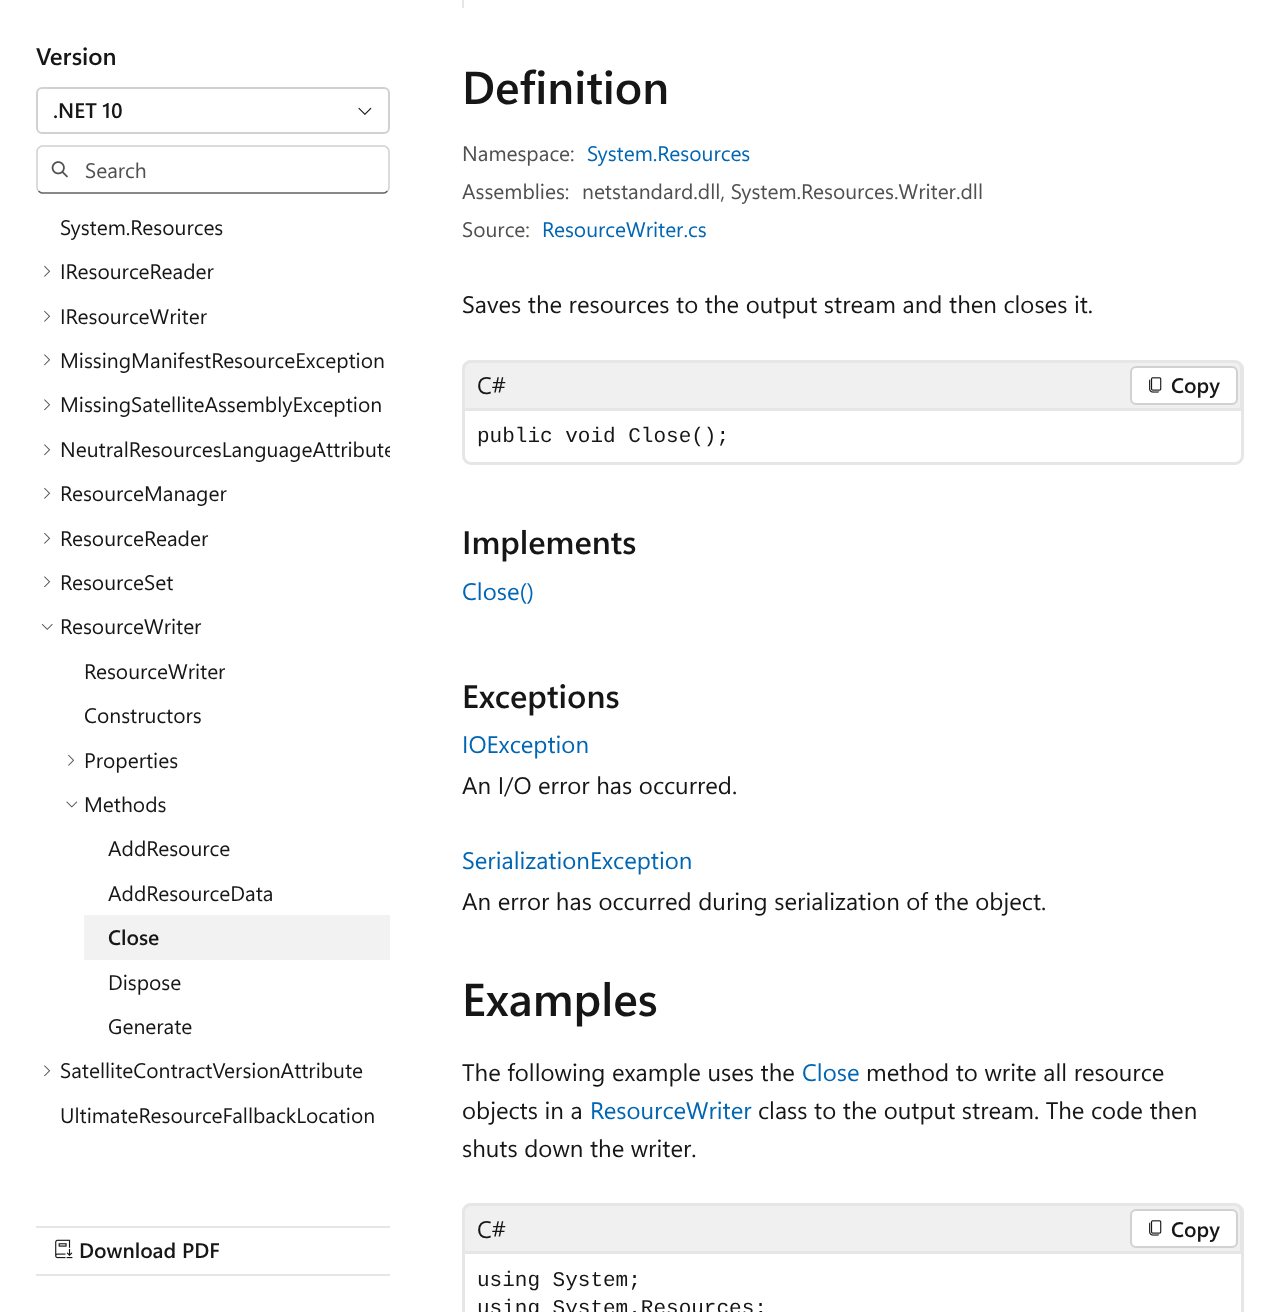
(async () => {
const canvas = document.querySelector("canvas")
canvas.width = 1279
canvas.height = 1312
const c = canvas.getContext("2d")
c.miterLimit = 4
c.fontKerning = "normal"
function T(s,x,y){c.fillText(s,x,y)}
function R(x,y,w,h){c.fillRect(x,y,w,h)}
async function I(src,x,y,w,h){const img=new Image();img.src=src;await img.decode();c.drawImage(img,x,y,w,h)}
let path
c.fillStyle="#fff"
R(0,0,1279,1312)
c.font="600 24px Segoe UI"
c.fillStyle="#161616"
T("Version",36,65)
c.beginPath()
c.roundRect(37,88,352,45,5)
c.strokeStyle="#d1d1d1"
c.lineWidth=2
c.stroke()
c.font="600 21px Segoe UI"
T(".NET 10",53,118)
await I("1.png",358,107,14,8)
path = new Path2D("M387.5 191c-1 1-2 2-3.5 2h-342c-1.5 0-2.5-1-3.5-2")
c.strokeStyle="#616161"
c.lineWidth=1.5
c.stroke(path)
path = new Path2D("M38.5 191c-1-1-1.5-2-1.5-3.5v-36c0-1.5 .5-2.5 1.5-3.5c1-1 2-2 3.5-2h342c1.5 0 2.5 1 3.5 2c1 1 1.5 2 1.5 3.5v36c0 1.5-.5 2.5-1.5 3.5")
c.strokeStyle="#d1d1d1"
c.stroke(path)
await I("2.png",51,161,17,17)
c.font="21px Segoe UI"
c.fillStyle="#505050"
T("Search",85,178)
c.fillStyle="#161616"
T("System.Resources",60,235)
await I("3.png",44,265,7,12)
T("IResourceReader",60,279)
await I("3.png",44,310,7,12)
T("IResourceWriter",60,324)
await I("4.png",44,354,7,12)
T("MissingManifestResourceException",60,368)
await I("4.png",44,399,7,12)
T("MissingSatelliteAssemblyException",60,412)
await I("4.png",44,444,7,12)
c.save()
c.beginPath()
c.rect(36,206,354,1020)
c.clip()
T("NeutralResourcesLanguageAttribute",60,457)
c.restore()
await I("3.png",44,487,7,12)
T("ResourceManager",60,501)
await I("3.png",44,532,7,12)
T("ResourceReader",60,546)
await I("4.png",44,576,7,12)
T("ResourceSet",60,590)
await I("5.png",41,623,12,7)
T("ResourceWriter",60,634)
T("ResourceWriter",84,679)
T("Constructors",84,723)
await I("3.png",68,754,7,12)
T("Properties",84,768)
await I("6.png",66,801,12,7)
T("Methods",84,812)
T("AddResource",108,856)
T("AddResourceData",108,901)
c.fillStyle="#f2f2f2"
R(84,915,306,45)
c.font="600 21px Segoe UI"
c.fillStyle="#161616"
T("Close",108,945)
c.font="21px Segoe UI"
T("Dispose",108,990)
T("Generate",108,1034)
await I("4.png",44,1065,7,12)
T("SatelliteContractVersionAttribute",60,1078)
T("UltimateResourceFallbackLocation",60,1123)
c.fillStyle="#e6e6e6"
R(36,1226,354,2)
R(36,1274,354,2)
await I("7.png",55,1239,18,20)
c.font="600 21px Segoe UI"
c.fillStyle="#161616"
T("Download PDF",79,1258)
c.fillStyle="#e6e6e6"
R(462,0,2,8)
c.font="600 46px Segoe UI"
c.fillStyle="#161616"
T("Definition",462,104)
c.font="21px Segoe UI"
c.fillStyle="#505050"
T("Namespace:",462,161)
c.fillStyle="#0065b3"
T("System.Resources",587,161)
c.fillStyle="#505050"
T("Assemblies:",462,199)
T("netstandard.dll, System.Resources.Writer.dll",582,199)
T("Source:",462,237)
c.fillStyle="#0065b3"
T("ResourceWriter.cs",542,237)
c.font="24px Segoe UI"
c.fillStyle="#161616"
T("Saves the resources to the output stream and then closes it.",462,313)
c.fillStyle="#f0f0f0"
c.beginPath()
c.roundRect(462,360,782,48,[9,9,0,0])
c.fill()
c.fillStyle="#e6e6e6"
path = new Path2D("M471 360h763c5 0 10 4 10 9v39h-782v-39c0-5 4-9 9-9zm0 3h763c4 0 6 3 6 6v39h-775v-39c0-3 3-6 6-6z")
c.fill(path,"evenodd")
c.fillStyle="#161616"
T("C#",477,394)
c.fillStyle="#fff"
c.beginPath()
c.roundRect(1131,367,106,37,5)
c.fill()
c.lineWidth=2
c.stroke()
await I("8.png",1149,377,13,16)
c.font="600 21px Segoe UI"
c.fillStyle="#161616"
T("Copy",1171,393)
c.beginPath()
c.roundRect(463.5,409.5,779,54,[0,0,7.5,7.5])
c.strokeStyle="#e6e6e6"
c.lineWidth=3
c.stroke()
c.font="21px Liberation Mono"
T("public void Close();",477,442)
c.font="600 32.5px Segoe UI"
T("Implements",462,554)
c.font="24px Segoe UI"
c.fillStyle="#0065b3"
T("Close()",462,600)
c.font="600 32.5px Segoe UI"
c.fillStyle="#161616"
T("Exceptions",462,708)
c.font="24px Segoe UI"
c.fillStyle="#0065b3"
T("IOException",462,753)
c.fillStyle="#161616"
T("An I/O error has occurred.",462,794)
c.fillStyle="#0065b3"
T("SerializationException",462,869)
c.fillStyle="#161616"
T("An error has occurred during serialization of the object.",462,910)
c.font="600 46px Segoe UI"
T("Examples",462,1016)
c.font="24px Segoe UI"
T("The following example uses the",462,1081)
c.fillStyle="#0065b3"
T("Close",802,1081)
c.fillStyle="#161616"
T("method to write all resource",866,1081)
T("objects in a",462,1119)
c.fillStyle="#0065b3"
T("ResourceWriter",590,1119)
c.fillStyle="#161616"
T("class to the output stream. The code then",758,1119)
T("shuts down the writer.",462,1157)
c.fillStyle="#f0f0f0"
c.beginPath()
c.roundRect(462,1203,782,48,[9,9,0,0])
c.fill()
c.fillStyle="#e6e6e6"
path = new Path2D("M471 1203h763c5 0 10 4 10 9v39h-782v-39c0-5 4-9 9-9zm0 3h763c4 0 6 3 6 6v39h-775v-39c0-3 3-6 6-6z")
c.fill(path,"evenodd")
c.fillStyle="#161616"
T("C#",477,1238)
c.fillStyle="#fff"
c.beginPath()
c.roundRect(1131,1210,106,37,5)
c.fill()
c.strokeStyle="#d1d1d1"
c.lineWidth=2
c.stroke()
await I("8.png",1149,1220,13,16)
c.font="600 21px Segoe UI"
c.fillStyle="#161616"
T("Copy",1171,1237)
c.strokeStyle="#e6e6e6"
c.lineWidth=3
c.strokeRect(463.5,1252.5,779,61)
c.font="21px Liberation Mono"
T("using System;",477,1286)
T("using System.Resources;",477,1314)
})()
